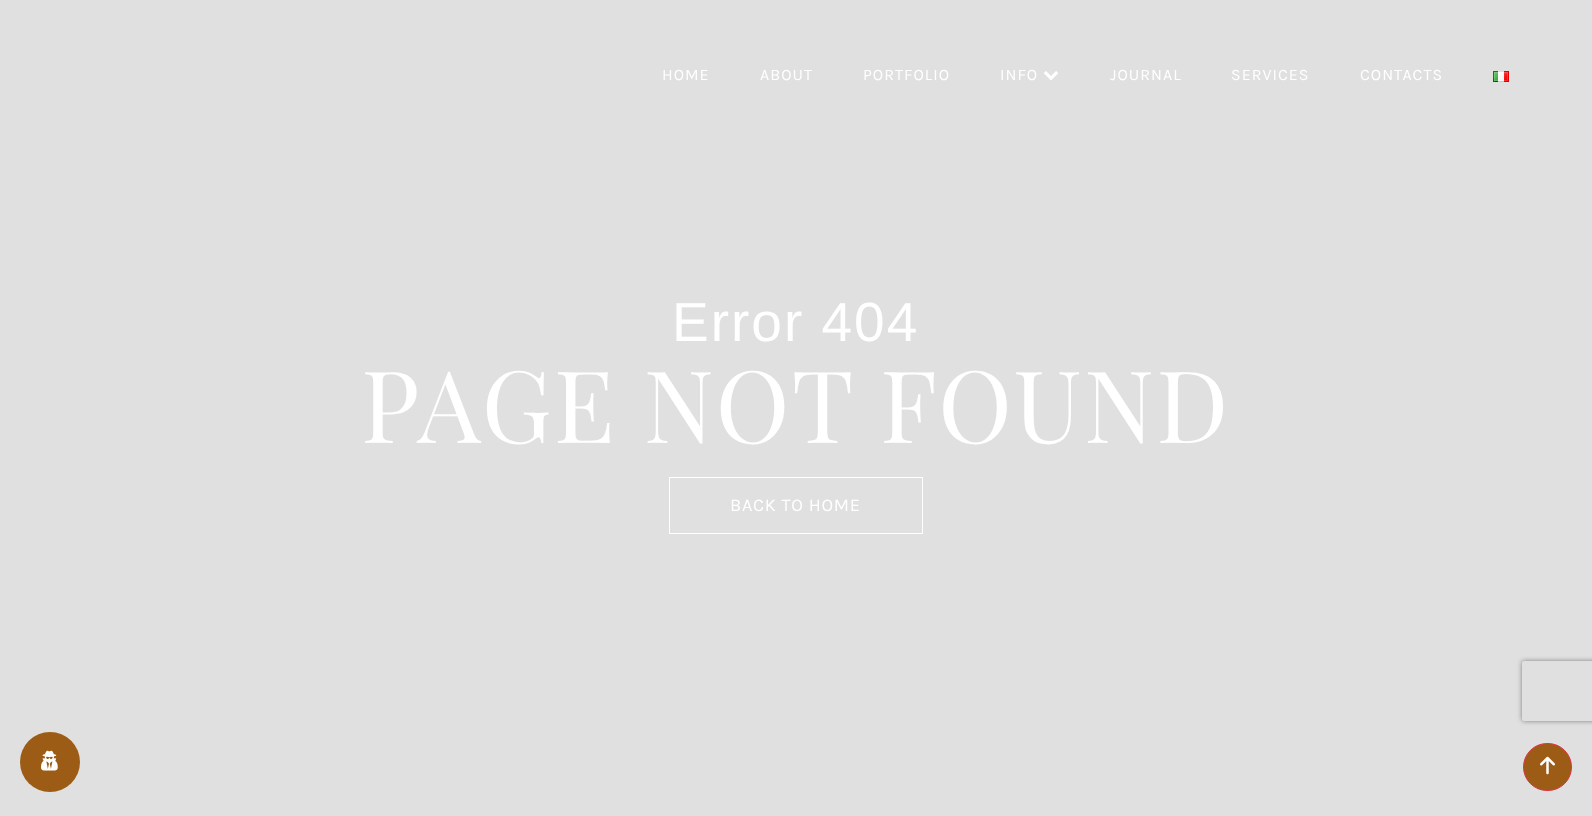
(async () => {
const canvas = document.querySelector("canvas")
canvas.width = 1592
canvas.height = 816
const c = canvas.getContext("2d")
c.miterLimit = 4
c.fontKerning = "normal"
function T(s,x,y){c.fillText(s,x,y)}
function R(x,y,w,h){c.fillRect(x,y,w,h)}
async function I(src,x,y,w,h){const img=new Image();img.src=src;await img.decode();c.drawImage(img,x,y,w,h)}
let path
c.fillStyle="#e0e0e0"
R(0,0,1592,816)
c.letterSpacing="1px"
c.font="16px Karla"
c.fillStyle="#fff"
T("HOME",662,80)
T("ABOUT",760,80)
T("PORTFOLIO",863,80)
T("INFO",1000,80)
await I("1.png",1044,71,14,9)
T("JOURNAL",1110,80)
T("SERVICES",1231,80)
T("CONTACTS",1360,80)
await I("2.png",1493,71,16,11)
c.letterSpacing="2px"
c.font="55px Liberation Sans"
T("Error 404",672,341)
c.font="100px Playfair Display"
T("PAGE NOT FOUND",361,443)
c.strokeStyle="#fff"
c.strokeRect(669.5,477.5,253,56)
c.letterSpacing="0.75px"
c.font="18px Karla"
T("BACK TO HOME",730,511)
c.save()
path = new Path2D("M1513 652h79v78h-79zm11 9h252c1 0 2 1 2 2v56c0 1-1 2-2 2h-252c-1 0-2-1-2-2v-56c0-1 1-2 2-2z")
c.clip(path,"evenodd")
c.fillStyle="#808080"
c.filter="blur(2.5px)"
c.beginPath()
c.roundRect(1522,661,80,60,2)
c.fill()
c.filter="none"
c.restore()
c.fillStyle="#9c5c15"
c.beginPath()
c.arc(50,762,30,0,7)
c.fill()
await I("3.png",41,750,17,21)
c.beginPath()
c.roundRect(1523.5,743.5,48,47,23.5)
c.fill()
c.strokeStyle="#dc3545"
c.stroke()
await I("4.png",1540,756,15,19)
})()
